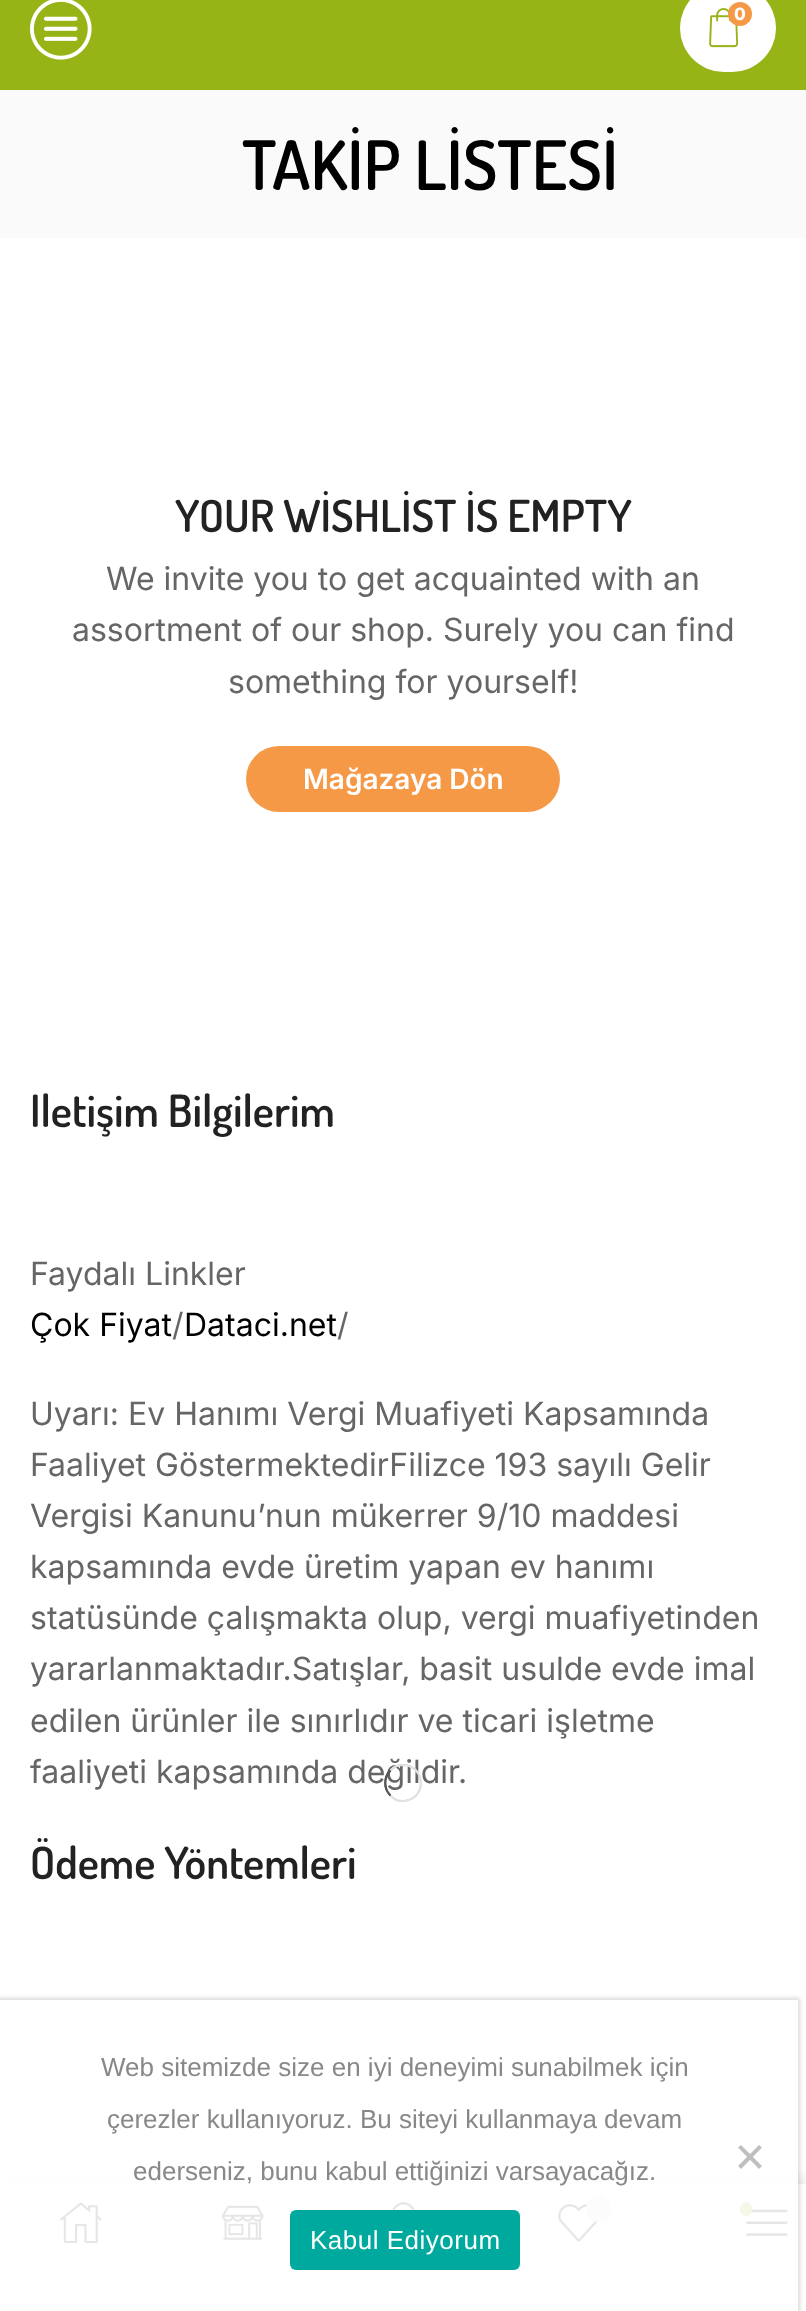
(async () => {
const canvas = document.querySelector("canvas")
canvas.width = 806
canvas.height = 2311
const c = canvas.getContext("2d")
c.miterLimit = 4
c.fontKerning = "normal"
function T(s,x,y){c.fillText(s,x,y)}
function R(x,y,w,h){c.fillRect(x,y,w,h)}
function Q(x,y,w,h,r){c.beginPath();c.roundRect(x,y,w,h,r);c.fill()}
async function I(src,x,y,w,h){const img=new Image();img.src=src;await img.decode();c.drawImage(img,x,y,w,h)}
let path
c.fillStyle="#fff"
R(0,0,806,2311)
c.fillStyle="#96b416"
R(0,0,806,90)
await I("1.png",30,0,62,60)
c.fillStyle="#fff"
Q(680,-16,96,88,44)
await I("2.png",709,8,30,40)
c.fillStyle="#f69946"
c.beginPath()
c.arc(740,14,12,0,7)
c.fill()
c.font="800 17px Inter"
c.fillStyle="#fff"
T("0",734,20)
c.fillStyle="#fafafa"
R(0,90,806,148)
c.font="600 68px Dosis"
c.fillStyle="#000"
T("TAKİP LİSTESİ",242,190)
c.font="600 44.25px Dosis"
c.fillStyle="#222"
T("YOUR WİSHLİST İS EMPTY",175,532)
c.font="32px Inter"
c.fillStyle="#666"
T("We invite you to get acquainted with an",106,590)
T("assortment of our shop. Surely you can find",72,641)
T("something for yourself!",228,693)
c.fillStyle="#f69946"
Q(246,746,314,66,33)
c.font="600 28px Inter"
c.fillStyle="#fff"
T("Mağazaya Dön",303,789)
c.font="600 44.5px Dosis"
c.fillStyle="#222"
T("Iletişim Bilgilerim",30,1127)
c.font="32px Inter"
c.fillStyle="#666"
T("faaliyeti kapsamında değildir.",30,1783)
path = new Path2D("M390.5 1770.5c3-3.5 8-5.5 12.5-5.5c21.5 0 24.5 31.5 3.5 35.5c-6 1.5-12-.5-16-5")
c.strokeStyle="#e1e1e1"
c.lineWidth=2
c.stroke(path)
path = new Path2D("M390.5 1795.5c-7-6.5-7-18.5 0-25")
c.strokeStyle="#555"
c.stroke(path)
T("Faydalı Linkler",30,1285)
c.fillStyle="#000"
T("Çok Fiyat",30,1336)
c.fillStyle="#666"
T("/",172,1336)
c.fillStyle="#000"
T("Dataci.net",184,1336)
c.fillStyle="#666"
T("/",337,1336)
T("Uyarı: Ev Hanımı Vergi Muafiyeti Kapsamında",30,1425)
T("Faaliyet GöstermektedirFilizce 193 sayılı Gelir",30,1476)
T("Vergisi Kanunu’nun mükerrer 9/10 maddesi",30,1527)
T("kapsamında evde üretim yapan ev hanımı",30,1578)
T("statüsünde çalışmakta olup, vergi muafiyetinden",30,1629)
T("yararlanmaktadır.Satışlar, basit usulde evde imal",30,1680)
T("edilen ürünler ile sınırlıdır ve ticari işletme",30,1732)
path = new Path2D("M390.5 1770.5c3-3.5 8-5.5 12.5-5.5c21.5 0 24.5 31.5 3.5 35.5c-6 1.5-12-.5-16-5")
c.strokeStyle="#e1e1e1"
c.stroke(path)
path = new Path2D("M390.5 1795.5c-7-6.5-7-18.5 0-25")
c.strokeStyle="#555"
c.stroke(path)
c.font="600 44.5px Dosis"
c.fillStyle="#222"
T("Ödeme Yöntemleri",30,1879)
c.save()
c.beginPath()
c.rect(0,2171,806,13)
c.clip()
c.fillStyle="#00000026"
c.filter="blur(12px)"
c.beginPath()
c.rect(4,2184,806,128)
c.fill()
c.filter="none"
c.restore()
await I("3.png",60,2202,42,42)
await I("4.png",222,2205,42,35)
await I("5.png",392,2202,23,8)
await I("6.png",558,2204,40,38)
c.fillStyle="#e1e1e1"
c.beginPath()
c.arc(599,2209,13,0,7)
c.fill()
await I("7.png",746,2209,42,27)
c.fillStyle="#96b416"
Q(740,2202,12,14,6)
c.save()
path = new Path2D("M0 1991h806v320h-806zm-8 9h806v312h-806z")
c.clip(path,"evenodd")
c.fillStyle="#00000026"
c.filter="blur(2px)"
c.beginPath()
c.rect(-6,1998,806,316)
c.fill()
c.filter="none"
c.restore()
c.fillStyle="#ffffffe6"
R(0,2167,798,77)
c.font="26px Liberation Sans"
c.fillStyle="#888"
T("Web sitemizde size en iyi deneyimi sunabilmek için",101,2076)
T("çerezler kullanıyoruz. Bu siteyi kullanmaya devam",107,2128)
T("ederseniz, bunu kabul ettiğinizi varsayacağız.",133,2180)
c.fillStyle="#bfbfbf"
path = new Path2D("M759 2145l3 2.5l-21 21.5l-3-3z")
c.fill(path)
path = new Path2D("M738 2147.5l3-2.5l21 21l-3 3z")
c.fill(path)
c.fillStyle="#00a99d"
Q(290,2210,230,60,6)
c.letterSpacing="0.5px"
c.fillStyle="#fff"
T("Kabul Ediyorum",310,2249)
})()
